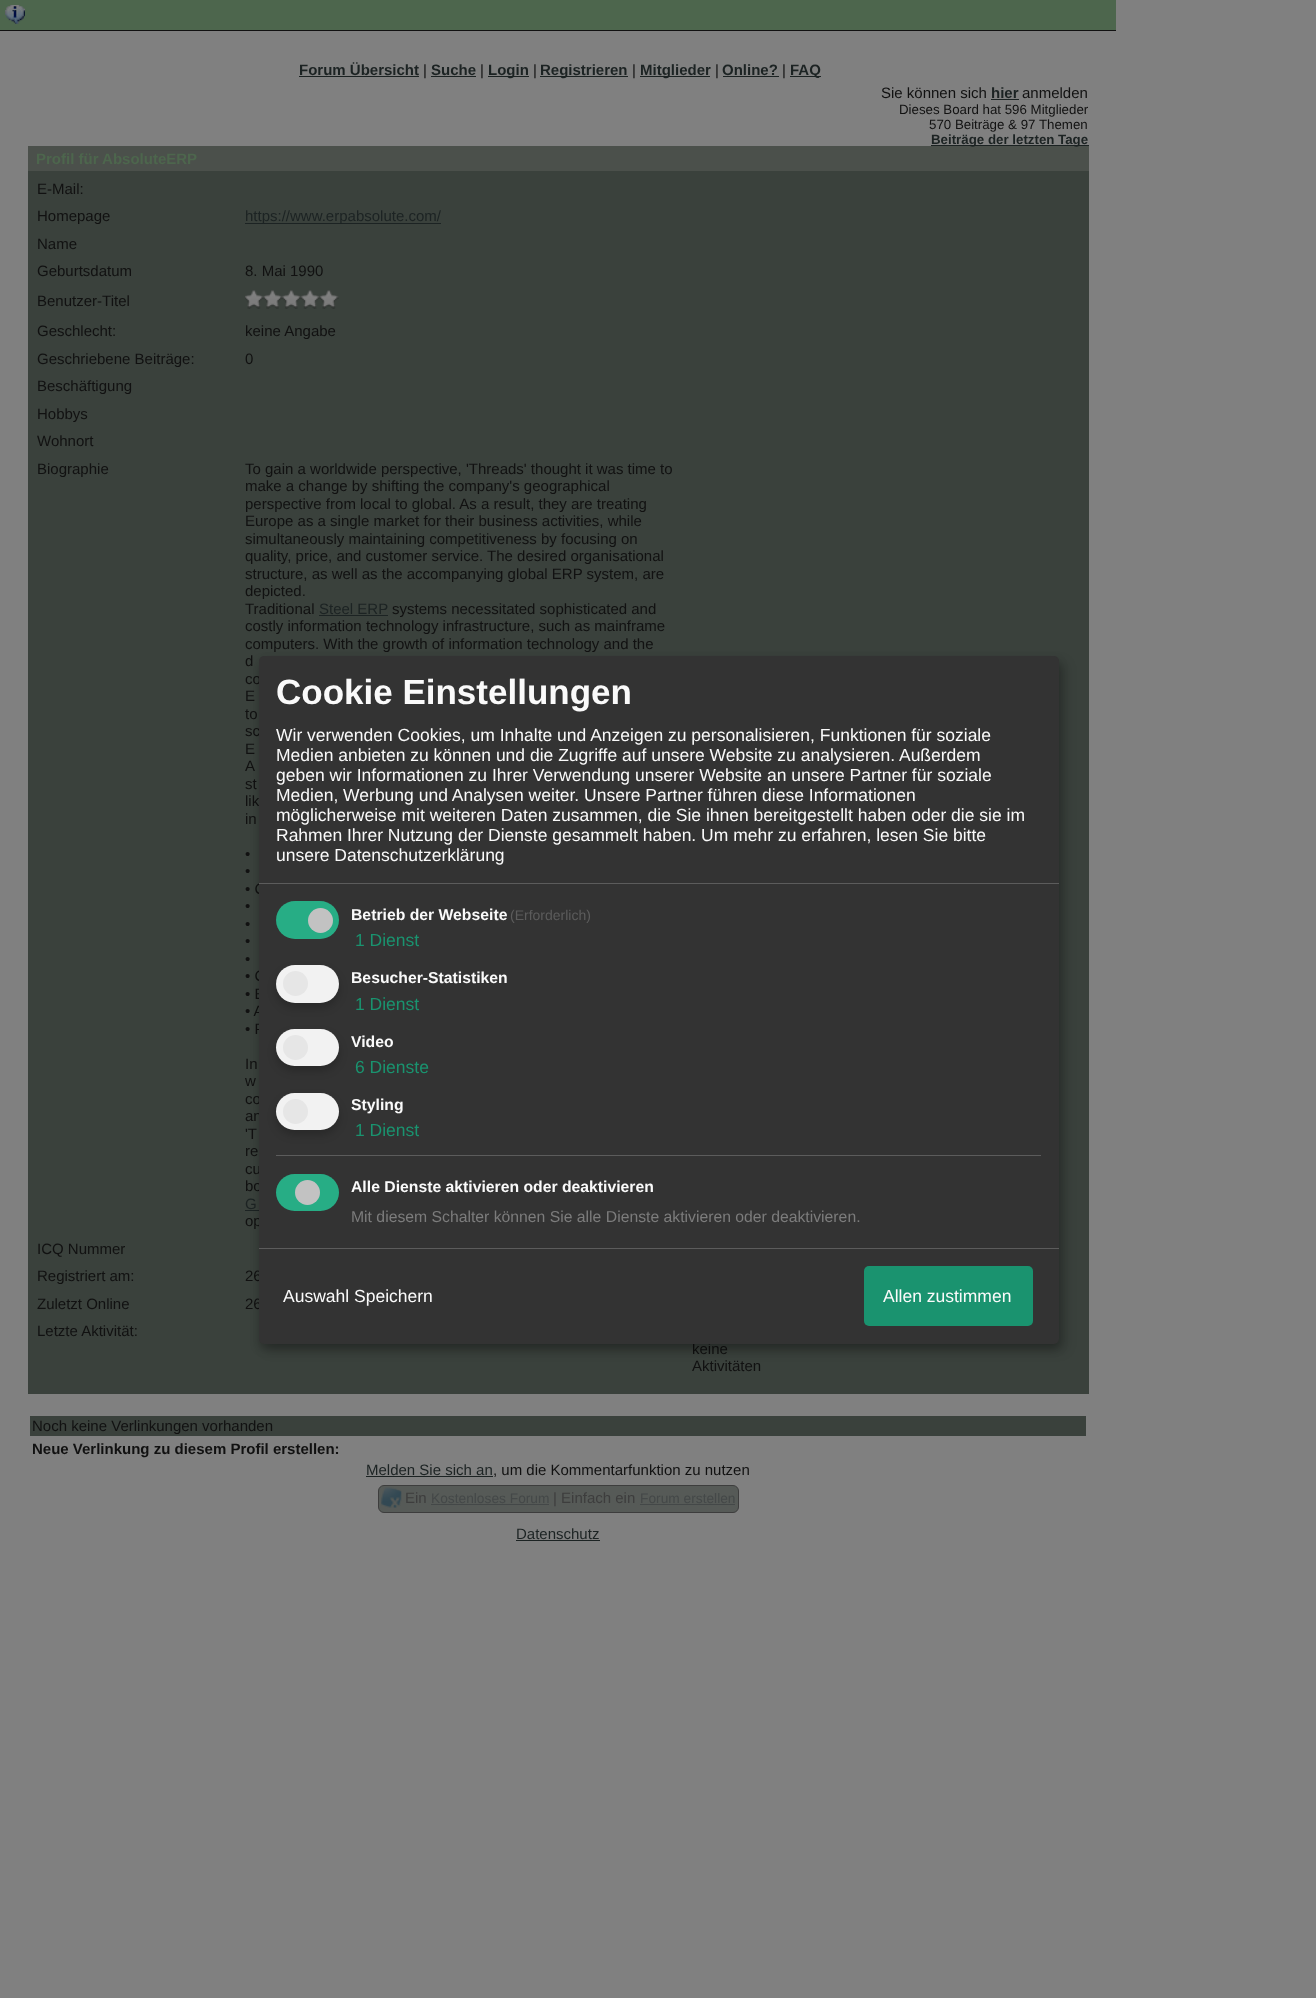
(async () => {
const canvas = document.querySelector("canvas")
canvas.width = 1316
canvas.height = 1998
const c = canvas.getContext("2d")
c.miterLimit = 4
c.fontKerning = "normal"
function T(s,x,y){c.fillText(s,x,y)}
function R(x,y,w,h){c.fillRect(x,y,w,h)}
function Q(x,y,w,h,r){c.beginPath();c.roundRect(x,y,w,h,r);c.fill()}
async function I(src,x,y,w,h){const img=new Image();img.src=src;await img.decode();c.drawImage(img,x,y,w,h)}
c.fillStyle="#808080"
R(0,0,1316,1998)
c.fillStyle="#4d664d"
R(0,0,1116,30)
c.fillStyle="#111"
R(0,30,1116,1)
await I("1.png",5,5,20,19)
c.font="bold 15px Liberation Sans"
c.fillStyle="#1c2323"
T("Forum Übersicht",299,75)
R(299,76,120,1)
c.font="15px Liberation Sans"
c.fillStyle="#111"
T("|",423,75)
c.font="bold 15px Liberation Sans"
c.fillStyle="#1c2323"
T("Suche",431,75)
R(431,76,45,1)
c.font="15px Liberation Sans"
c.fillStyle="#111"
T("|",480,75)
c.fillStyle="#1c2323"
R(488,76,41,1)
c.font="bold 15px Liberation Sans"
T("Login",488,75)
c.font="15px Liberation Sans"
c.fillStyle="#111"
T("|",533,75)
c.fillStyle="#1c2323"
R(540,76,88,1)
c.font="bold 15px Liberation Sans"
T("Registrieren",540,75)
c.font="15px Liberation Sans"
c.fillStyle="#111"
T("|",632,75)
c.fillStyle="#1c2323"
R(640,76,70,1)
c.font="bold 15px Liberation Sans"
T("Mitglieder",640,75)
c.font="15px Liberation Sans"
c.fillStyle="#111"
T("|",715,75)
c.font="bold 15px Liberation Sans"
c.fillStyle="#1c2323"
T("Online?",722,75)
R(723,76,56,1)
c.font="15px Liberation Sans"
c.fillStyle="#111"
T("|",782,75)
c.fillStyle="#1c2323"
R(790,76,31,1)
c.font="bold 15px Liberation Sans"
T("FAQ",790,75)
c.font="15px Liberation Sans"
c.fillStyle="#111"
T("Sie können sich",881,98)
c.font="bold 15px Liberation Sans"
c.fillStyle="#1c2323"
T("hier",991,98)
R(991,99,28,1)
c.font="15px Liberation Sans"
c.fillStyle="#111"
T("anmelden",1022,98)
c.font="13.3px Liberation Sans"
T("Dieses Board hat 596 Mitglieder",899,114)
T("570 Beiträge & 97 Themen",929,129)
c.fillStyle="#1c2323"
R(931,145,158,1)
c.fillStyle="#4b504b"
R(28,146,1061,25)
c.font="bold 13.3px Liberation Sans"
c.fillStyle="#1c2323"
T("Beiträge der letzten Tage",931,144)
c.font="bold 15px Liberation Sans"
c.fillStyle="#4d664d"
T("Profil für AbsoluteERP",36,164)
c.fillStyle="#3a413c"
R(28,171,1061,1223)
c.font="15px Liberation Sans"
c.fillStyle="#111"
T("E-Mail:",37,194)
T("Homepage",37,221)
c.fillStyle="#1c2323"
R(245,223,196,1)
T("https://www.erpabsolute.com/",245,221)
c.fillStyle="#111"
T("Name",37,249)
T("Geburtsdatum",37,276)
T("8. Mai 1990",245,276)
T("Benutzer-Titel",37,306)
await I("2.png",245,290,94,19)
T("Geschlecht:",37,336)
T("keine Angabe",245,336)
T("Geschriebene Beiträge:",37,364)
T("0",245,364)
T("Beschäftigung",37,391)
T("Hobbys",37,419)
T("Wohnort",37,446)
T("Biographie",37,474)
T("To gain a worldwide perspective, 'Threads' thought it was time to",245,474)
T("make a change by shifting the company's geographical",245,491)
T("perspective from local to global. As a result, they are treating",245,509)
T("Europe as a single market for their business activities, while",245,526)
T("simultaneously maintaining competitiveness by focusing on",245,544)
T("quality, price, and customer service. The desired organisational",245,561)
T("structure, as well as the accompanying global ERP system, are",245,579)
T("depicted.",245,596)
T("Traditional",245,614)
c.fillStyle="#1c2323"
T("Steel ERP",319,614)
R(319,615,69,1)
c.fillStyle="#111"
T("systems necessitated sophisticated and",392,614)
T("costly information technology infrastructure, such as mainframe",245,631)
T("computers. With the growth of information technology and the",245,649)
T("d",245,666)
T("co",245,684)
T("E",245,701)
T("to",245,719)
T("sc",245,736)
T("E",245,754)
T("A",245,771)
T("st",245,789)
T("lik",245,806)
T("in",245,824)
T("•",245,859)
T("•",245,876)
T("• C",245,894)
T("•",245,911)
T("•",245,929)
T("•",245,946)
T("•",245,964)
T("• C",245,981)
T("• E",245,999)
T("• A",245,1016)
T("• P",245,1034)
T("In",245,1069)
T("w",245,1086)
T("co",245,1104)
T("an",245,1121)
T("'T",245,1139)
T("re",245,1156)
T("cu",245,1174)
T("bo",245,1191)
c.fillStyle="#1c2323"
T("G",245,1209)
R(245,1210,14,1)
c.fillStyle="#111"
T("op",245,1226)
T("ICQ Nummer",37,1254)
T("Registriert am:",37,1281)
T("26",245,1281)
T("Zuletzt Online",37,1309)
T("26",245,1309)
T("Letzte Aktivität:",37,1336)
T("keine",692,1354)
T("Aktivitäten",692,1371)
c.fillStyle="#3a413c"
R(30,1416,1056,20)
c.fillStyle="#111"
T("Noch keine Verlinkungen vorhanden",32,1431)
c.font="bold 15px Liberation Sans"
T("Neue Verlinkung zu diesem Profil erstellen:",32,1454)
c.font="15px Liberation Sans"
c.fillStyle="#1c2323"
T("Melden Sie sich an",366,1475)
R(366,1476,127,1)
c.fillStyle="#111"
T(", um die Kommentarfunktion zu nutzen",493,1475)
c.fillStyle="#00000030"
c.filter="blur(6px)"
c.beginPath()
c.roundRect(265,663,800,687,5)
c.fill()
c.filter="none"
c.fillStyle="#00000033"
c.filter="blur(4px)"
c.beginPath()
c.roundRect(259,661,800,688,5)
c.fill()
c.filter="none"
c.fillStyle="#333"
Q(259,656,800,688,5)
c.fillStyle="#5c5c5c"
R(259,883,800,1)
c.font="bold 35px Liberation Sans"
c.fillStyle="#fafafa"
T("Cookie Einstellungen",276,704)
c.font="17.5px Liberation Sans"
T("Wir verwenden Cookies, um Inhalte und Anzeigen zu personalisieren, Funktionen für soziale",276,741)
T("Medien anbieten zu können und die Zugriffe auf unsere Website zu analysieren. Außerdem",276,761)
T("geben wir Informationen zu Ihrer Verwendung unserer Website an unsere Partner für soziale",276,781)
T("Medien, Werbung und Analysen weiter. Unsere Partner führen diese Informationen",276,801)
T("möglicherweise mit weiteren Daten zusammen, die Sie ihnen bereitgestellt haben oder die sie im",276,821)
T("Rahmen Ihrer Nutzung der Dienste gesammelt haben. Um mehr zu erfahren, lesen Sie bitte",276,841)
T("unsere Datenschutzerklärung",276,861)
c.fillStyle="#27ad85"
Q(276,901,63,38,19)
c.fillStyle="#c2c2c2"
c.beginPath()
c.arc(320.5,920.5,12.5,0,7)
c.fill()
c.font="bold 15.75px Liberation Sans"
c.fillStyle="#fafafa"
T("Betrieb der Webseite",351,920)
c.font="14px Liberation Sans"
c.fillStyle="#5c5c5c"
T("(Erforderlich)",510,920)
c.font="17.5px Liberation Sans"
c.fillStyle="#1a936f"
T("1 Dienst",355,946)
c.fillStyle="#00000033"
c.filter="blur(4px)"
c.beginPath()
c.roundRect(276,970,63,38,19)
c.fill()
c.filter="none"
c.fillStyle="#f2f2f2"
Q(276,965,63,38,19)
c.fillStyle="#e6e6e6"
c.beginPath()
c.arc(295.5,983.5,12.5,0,7)
c.fill()
c.font="bold 15.75px Liberation Sans"
c.fillStyle="#fafafa"
T("Besucher-Statistiken",351,983)
c.font="17.5px Liberation Sans"
c.fillStyle="#1a936f"
T("1 Dienst",355,1010)
c.fillStyle="#00000033"
c.filter="blur(4px)"
c.beginPath()
c.roundRect(276,1034,63,37,18.5)
c.fill()
c.filter="none"
c.fillStyle="#f2f2f2"
Q(276,1029,63,37,18.5)
c.fillStyle="#e6e6e6"
c.beginPath()
c.arc(295.5,1047.5,12.5,0,7)
c.fill()
c.font="bold 15.75px Liberation Sans"
c.fillStyle="#fafafa"
T("Video",351,1047)
c.font="17.5px Liberation Sans"
c.fillStyle="#1a936f"
T("6 Dienste",355,1073)
c.fillStyle="#00000033"
c.filter="blur(4px)"
c.beginPath()
c.roundRect(276,1098,63,37,18.5)
c.fill()
c.filter="none"
c.fillStyle="#f2f2f2"
Q(276,1093,63,37,18.5)
c.fillStyle="#e6e6e6"
c.beginPath()
c.arc(295.5,1111.5,12.5,0,7)
c.fill()
c.font="bold 15.75px Liberation Sans"
c.fillStyle="#fafafa"
T("Styling",351,1110)
c.font="17.5px Liberation Sans"
c.fillStyle="#1a936f"
T("1 Dienst",355,1136)
c.fillStyle="#5c5c5c"
R(276,1155,765,1)
c.fillStyle="#27ad85"
Q(276,1174,63,37,18.5)
c.fillStyle="#c2c2c2"
c.beginPath()
c.arc(307.5,1192.5,12.5,0,7)
c.fill()
c.font="bold 15.75px Liberation Sans"
c.fillStyle="#fafafa"
T("Alle Dienste aktivieren oder deaktivieren",351,1192)
c.font="15.75px Liberation Sans"
c.fillStyle="#7c7c7c"
T("Mit diesem Schalter können Sie alle Dienste aktivieren oder deaktivieren.",351,1222)
c.fillStyle="#5c5c5c"
R(259,1248,800,1)
c.font="17.5px Liberation Sans"
c.fillStyle="#fafafa"
T("Auswahl Speichern",283,1302)
c.fillStyle="#1a936f"
Q(864,1266,169,60,5)
c.fillStyle="#fafafa"
T("Allen zustimmen",883,1302)
c.fillStyle="#565a57"
c.beginPath()
c.roundRect(378.5,1485.5,360,27,5.5)
c.fill()
c.strokeStyle="#3d3d3d"
c.stroke()
await I("3.png",381,1487,21,21)
c.font="15px Liberation Sans"
c.fillStyle="#3d3d3d"
T("Ein",405,1503)
c.font="13.75px Liberation Sans"
c.fillStyle="#444848"
T("Kostenloses Forum",431,1503)
R(431,1504,118,1)
c.font="15px Liberation Sans"
c.fillStyle="#3d3d3d"
T("| Einfach ein",553,1503)
c.font="13.75px Liberation Sans"
c.fillStyle="#444848"
T("Forum erstellen",640,1503)
R(640,1504,95,1)
c.font="15px Liberation Sans"
c.fillStyle="#1c2323"
T("Datenschutz",516,1539)
R(516,1540,84,1)
})()
